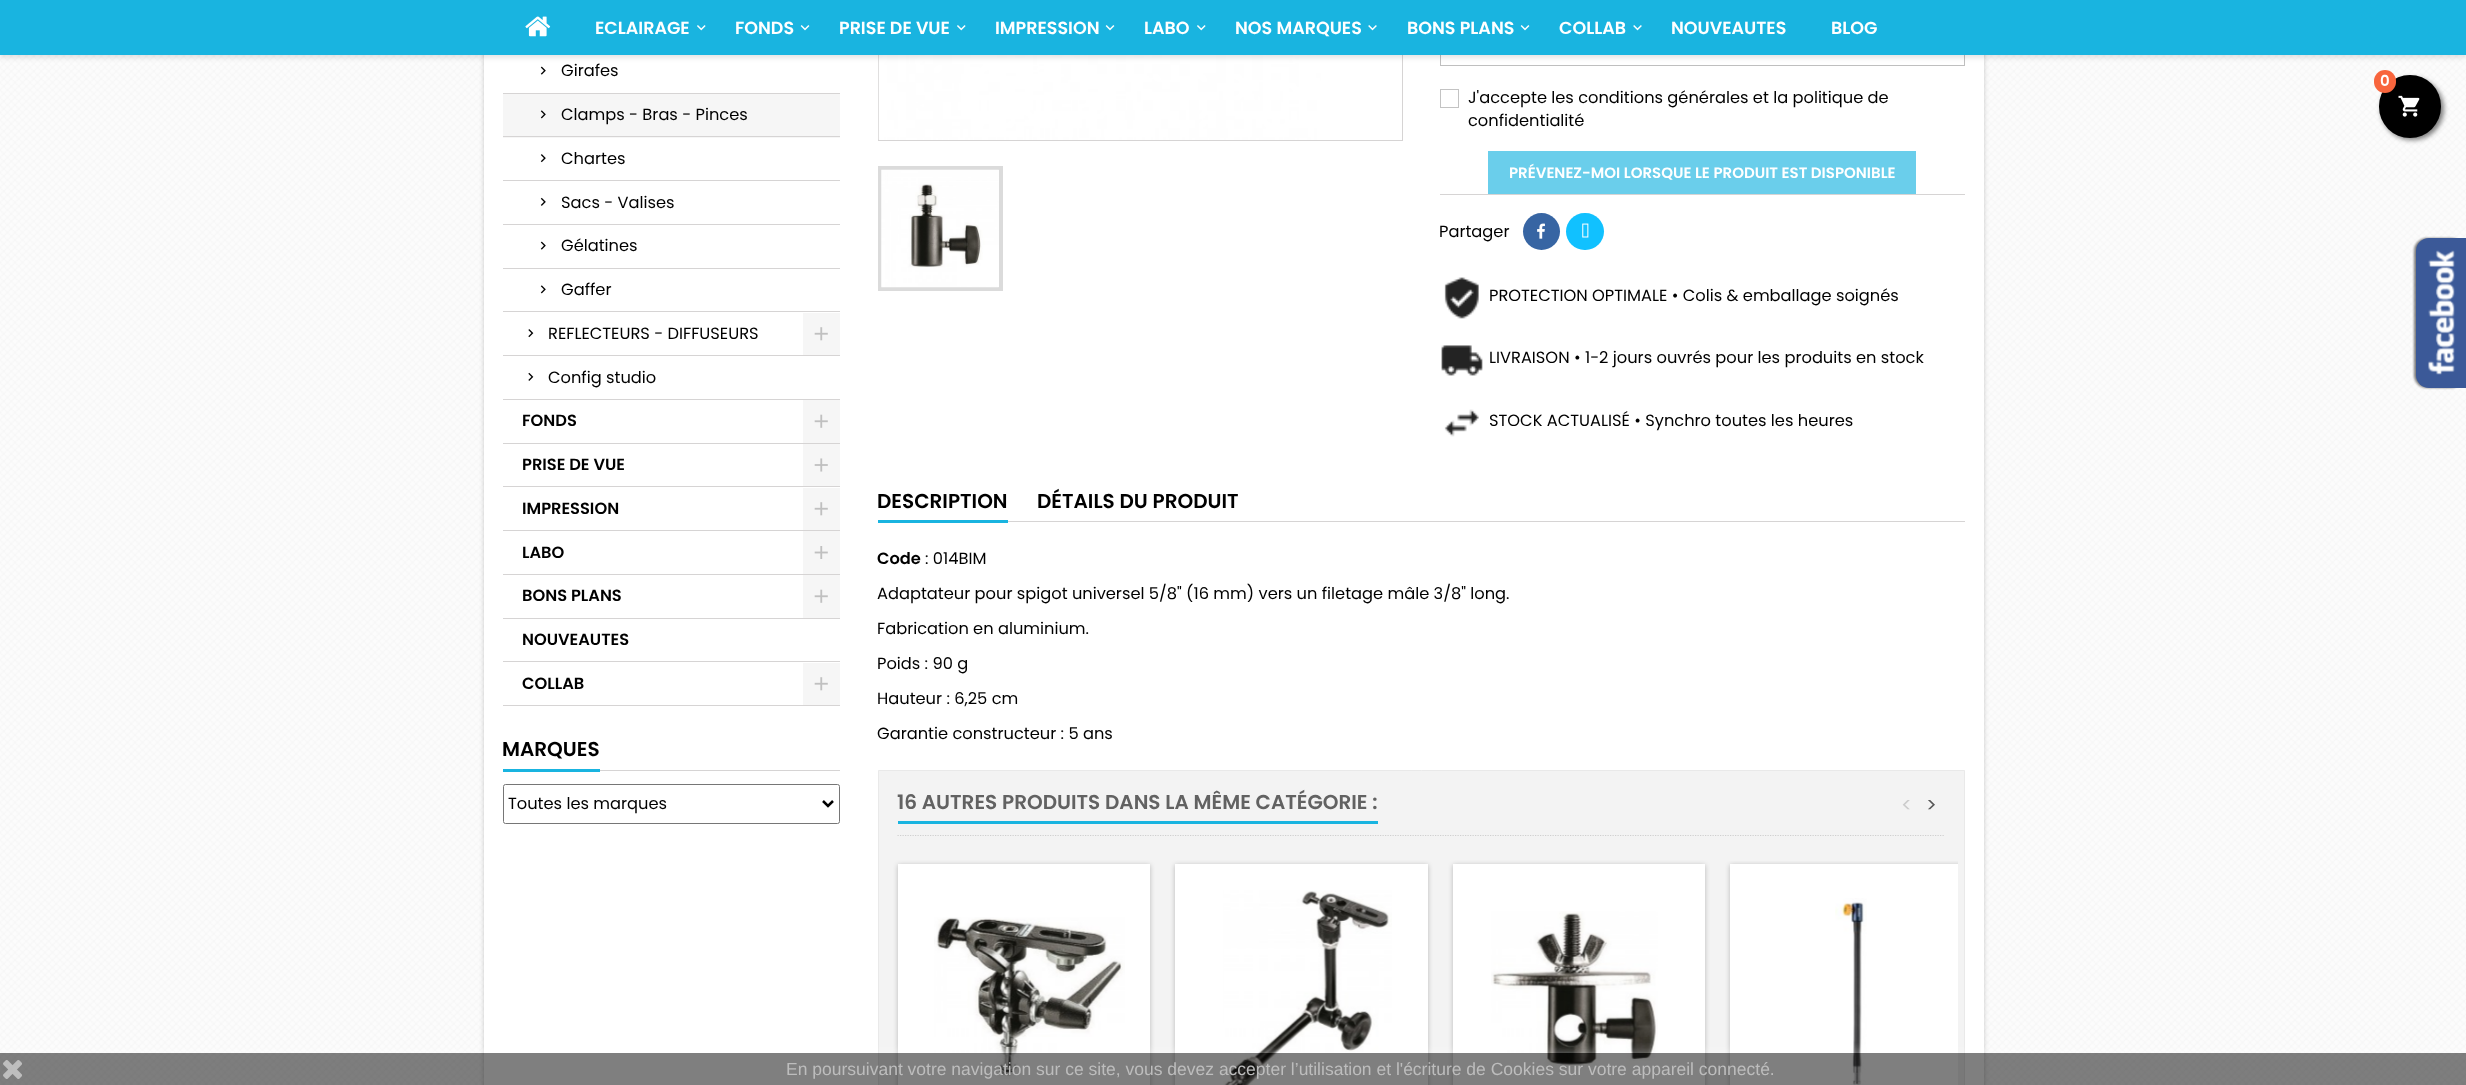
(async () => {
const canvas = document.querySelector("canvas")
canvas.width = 2466
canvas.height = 1085
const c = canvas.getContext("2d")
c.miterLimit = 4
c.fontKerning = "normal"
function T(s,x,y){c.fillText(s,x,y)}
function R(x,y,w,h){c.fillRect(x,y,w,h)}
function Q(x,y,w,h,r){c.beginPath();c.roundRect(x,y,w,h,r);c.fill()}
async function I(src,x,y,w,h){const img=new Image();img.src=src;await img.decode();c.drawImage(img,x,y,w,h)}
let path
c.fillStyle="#fff"
R(0,0,2466,1085)
await I("1.png",0,55,2466,1030)
c.fillStyle="#00000033"
c.filter="blur(2.5px)"
c.beginPath()
c.rect(484,-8,1500,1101)
c.fill()
c.filter="none"
c.fillStyle="#fff"
R(484,55,1500,1030)
await I("7.png",540,66,6,9)
c.strokeStyle="#d6d4d4"
c.strokeRect(878.5,-.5,524,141)
await I("18.png",878,55,443,85)
c.strokeStyle="#bfbfbf"
c.strokeRect(1440.5,19.5,524,46)
c.fillStyle="#0000001a"
c.filter="blur(2.5px)"
c.beginPath()
c.rect(0,3,2466,55)
c.fill()
c.filter="none"
c.fillStyle="#19b4e0"
R(0,0,2466,55)
await I("2.png",525,16,26,21)
c.font="600 17.5px Poppins"
c.fillStyle="#fff"
T("ECLAIRAGE",595,34)
await I("3.png",697,25,9,6)
T("FONDS",735,34)
await I("4.png",800,25,10,6)
T("PRISE DE VUE",839,34)
await I("3.png",957,25,9,6)
T("IMPRESSION",995,34)
await I("4.png",1105,25,10,6)
T("LABO",1144,34)
await I("3.png",1197,25,9,6)
T("NOS MARQUES",1235,34)
await I("5.png",1368,25,9,6)
T("BONS PLANS",1407,34)
await I("4.png",1520,25,10,6)
T("COLLAB",1559,34)
await I("5.png",1633,25,9,6)
T("NOUVEAUTES",1671,34)
T("BLOG",1831,34)
c.fillStyle="#00000080"
c.filter="blur(2.5px)"
c.beginPath()
c.roundRect(2381,78,63,62,31)
c.fill()
c.filter="none"
c.fillStyle="#000"
Q(2379,75,62,63,31)
c.fillStyle="#f8653d"
Q(2374,70,22,23,11)
c.font="600 15px Poppins"
c.fillStyle="#fff"
T("0",2380,86)
await I("6.png",2398,95,22,22)
c.fillStyle="#d6d4d4"
R(503,93,337,1)
c.font="16.25px Poppins"
c.fillStyle="#000"
T("Girafes",561,76)
c.fillStyle="#f6f6f6"
R(503,94,337,44)
c.fillStyle="#d6d4d4"
R(503,136,337,1)
await I("8.png",540,110,6,9)
c.fillStyle="#000"
T("Clamps - Bras - Pinces",561,120)
c.fillStyle="#d6d4d4"
R(503,180,337,1)
await I("9.png",540,154,6,9)
c.fillStyle="#000"
T("Chartes",561,164)
c.fillStyle="#d6d4d4"
R(503,224,337,1)
await I("10.png",540,197,6,9)
c.fillStyle="#000"
T("Sacs - Valises",561,208)
c.fillStyle="#d6d4d4"
R(503,268,337,1)
await I("7.png",540,241,6,9)
c.fillStyle="#000"
T("Gélatines",561,251)
c.fillStyle="#d6d4d4"
R(503,311,337,1)
await I("11.png",540,285,6,9)
c.fillStyle="#000"
T("Gaffer",561,295)
c.fillStyle="#d6d4d4"
R(503,355,337,1)
await I("12.png",528,329,6,9)
c.fillStyle="#000"
T("REFLECTEURS - DIFFUSEURS",548,339)
c.fillStyle="#f6f6f6"
R(803,313,37,42)
await I("13.png",814,327,14,14)
c.fillStyle="#d6d4d4"
R(503,399,337,1)
await I("14.png",528,372,6,9)
c.fillStyle="#000"
T("Config studio",548,383)
c.fillStyle="#d6d4d4"
R(503,443,337,1)
c.font="600 16.25px Poppins"
c.fillStyle="#000"
T("FONDS",522,426)
c.fillStyle="#f6f6f6"
R(803,400,37,43)
await I("15.png",814,414,14,14)
c.fillStyle="#d6d4d4"
R(503,486,337,1)
c.fillStyle="#000"
T("PRISE DE VUE",522,470)
c.fillStyle="#f6f6f6"
R(803,444,37,42)
await I("16.png",814,458,14,14)
c.fillStyle="#d6d4d4"
R(503,530,337,1)
c.fillStyle="#000"
T("IMPRESSION",522,514)
c.fillStyle="#f6f6f6"
R(803,488,37,42)
await I("13.png",814,502,14,14)
c.fillStyle="#d6d4d4"
R(503,574,337,1)
c.fillStyle="#000"
T("LABO",522,558)
c.fillStyle="#f6f6f6"
R(803,531,37,43)
await I("17.png",814,546,14,13)
c.fillStyle="#d6d4d4"
R(503,618,337,1)
c.fillStyle="#000"
T("BONS PLANS",522,601)
c.fillStyle="#f6f6f6"
R(803,575,37,43)
await I("15.png",814,589,14,14)
c.fillStyle="#d6d4d4"
R(503,661,337,1)
c.fillStyle="#000"
T("NOUVEAUTES",522,645)
c.fillStyle="#d6d4d4"
R(503,705,337,1)
c.fillStyle="#000"
T("COLLAB",522,689)
c.fillStyle="#f6f6f6"
R(803,663,37,42)
await I("13.png",814,677,14,14)
c.fillStyle="#d6d4d4"
R(600,770,240,1)
c.fillStyle="#19b4e0"
R(503,769,97,3)
c.font="600 20px Poppins"
c.fillStyle="#000"
T("MARQUES",502,756)
c.beginPath()
c.roundRect(503.5,784.5,336,39,2)
c.strokeStyle="#767676"
c.stroke()
path = new Path2D("M823 801l5 5l5-5")
c.strokeStyle="#000"
c.lineWidth=2.5
c.stroke(path)
c.font="16.25px Poppins"
T("Toutes les marques",508,809)
c.strokeStyle="#dbdbdb"
c.lineWidth=4
c.strokeRect(880,168,121,121)
await I("19.png",881,169,118,119)
c.strokeStyle="#c3c3c3"
c.lineWidth=1
c.strokeRect(1440.5,89.5,18,18)
T("J'accepte les conditions générales et la politique de",1468,103)
T("confidentialité",1468,126)
c.fillStyle="#6aceeb"
R(1488,151,428,43)
c.font="600 15px Poppins"
c.fillStyle="#fff"
T("PRÉVENEZ-MOI LORSQUE LE PRODUIT EST DISPONIBLE",1509,178)
c.fillStyle="#d6d4d4"
R(1440,194,525,1)
c.font="16.25px Poppins"
c.fillStyle="#000"
T("Partager",1439,237)
c.fillStyle="#3765a3"
c.beginPath()
c.arc(1541.5,231.5,18.5,0,7)
c.fill()
await I("20.png",1537,223,8,16)
c.fillStyle="#11c1ff"
Q(1566,213,38,37,18.5)
await I("21.png",1582,223,7,15)
await I("22.png",1444,277,35,42)
c.fillStyle="#000"
T("PROTECTION OPTIMALE • Colis & emballage soignés",1489,301)
await I("23.png",1441,345,42,31)
T("LIVRAISON • 1-2 jours ouvrés pour les produits en stock",1489,363)
await I("24.png",1444,409,35,28)
T("STOCK ACTUALISÉ • Synchro toutes les heures",1489,426)
c.fillStyle="#d6d4d4"
R(1008,521,957,1)
c.fillStyle="#19b4e0"
R(878,520,130,3)
c.font="600 20px Poppins"
c.fillStyle="#000"
T("DESCRIPTION",877,508)
T("DÉTAILS DU PRODUIT",1037,508)
c.font="600 16.25px Poppins"
T("Code",877,564)
c.font="16.25px Poppins"
T(": 014BIM",925,564)
T("Adaptateur pour spigot universel 5/8\" (16 mm) vers un filetage mâle 3/8\" long.",877,599)
T("Fabrication en aluminium.",877,634)
T("Poids : 90 g",877,669)
T("Hauteur : 6,25 cm",877,704)
T("Garantie constructeur : 5 ans",877,739)
c.fillStyle="#f3f3f3"
c.beginPath()
c.rect(878.5,770.5,1086,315)
c.fill()
c.strokeStyle="#e9e9e9"
c.stroke()
path = new Path2D("M897.5 835.5h1047.5")
c.strokeStyle="#cfcfcf"
c.lineWidth=1.2
c.setLineDash([1.25,1.25])
c.stroke(path)
c.fillStyle="#19b4e0"
R(898,821,480,3)
c.font="600 20px Poppins"
c.fillStyle="#626262"
T("16 AUTRES PRODUITS DANS LA MÊME CATÉGORIE :",897,809)
c.font="20px Poppins"
c.fillStyle="#ccc"
T("<",1901,812)
c.fillStyle="#585858"
T(">",1926,812)
c.fillStyle="#0000003d"
c.filter="blur(2.5px)"
c.beginPath()
c.rect(898,865,252,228)
c.fill()
c.filter="none"
c.fillStyle="#fff"
R(898,864,252,221)
await I("25.png",934,917,191,162)
c.fillStyle="#0000003d"
c.filter="blur(2.5px)"
c.beginPath()
c.rect(1175,865,253,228)
c.fill()
c.filter="none"
c.fillStyle="#fff"
R(1175,864,253,221)
await I("26.png",1223,890,169,195)
c.fillStyle="#0000003d"
c.filter="blur(2.5px)"
c.beginPath()
c.rect(1453,865,252,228)
c.fill()
c.filter="none"
c.fillStyle="#fff"
R(1453,864,252,221)
await I("27.png",1491,911,167,156)
c.save()
c.beginPath()
c.rect(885,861,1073,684)
c.clip()
c.fillStyle="#0000003d"
c.filter="blur(2.5px)"
c.beginPath()
c.rect(1730,865,253,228)
c.fill()
c.filter="none"
c.restore()
R(1730,864,228,221)
await I("28.png",1835,898,32,187)
c.fillStyle="#00000080"
c.filter="blur(1px)"
c.beginPath()
c.roundRect(2414,238,50,150,13)
c.fill()
c.filter="none"
c.fillStyle="#3b5998"
c.beginPath()
c.roundRect(2416,238,50,150,[13,0,0,13])
c.fill()
await I("29.png",2428,250,27,125)
c.save()
c.beginPath()
c.rect(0,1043,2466,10)
c.clip()
c.fillStyle="#ffffff80"
c.filter="blur(6px)"
c.beginPath()
c.rect(0,1053,2466,32)
c.fill()
c.filter="none"
c.restore()
c.fillStyle="#00000080"
R(0,1053,2466,32)
await I("30.png",3,1060,19,19)
c.font="17.5px Liberation Sans"
c.fillStyle="#bdbdbd"
T("En poursuivant votre navigation sur ce site, vous devez accepter l’utilisation et l'écriture de Cookies sur votre appareil connecté.",786,1075)
})()
